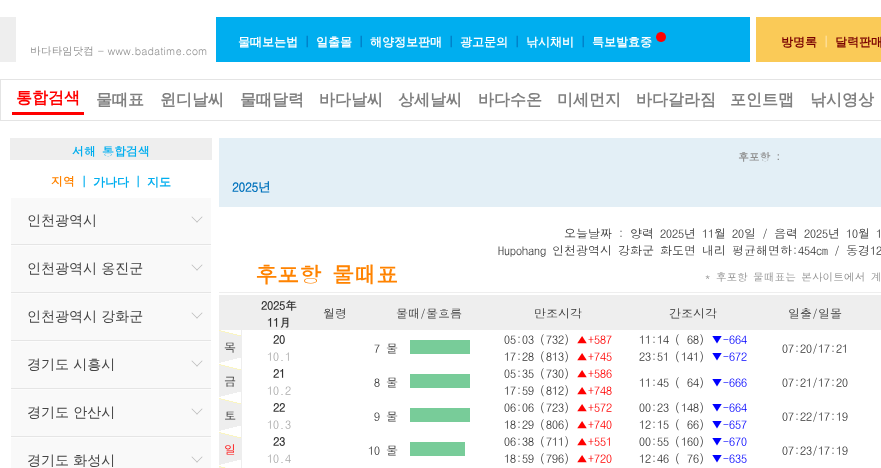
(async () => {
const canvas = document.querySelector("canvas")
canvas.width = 881
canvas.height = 468
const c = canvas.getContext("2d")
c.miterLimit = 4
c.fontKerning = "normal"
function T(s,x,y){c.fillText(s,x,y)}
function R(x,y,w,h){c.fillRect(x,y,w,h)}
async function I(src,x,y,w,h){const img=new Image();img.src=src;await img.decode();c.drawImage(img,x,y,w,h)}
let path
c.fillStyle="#fff"
R(0,0,881,468)
c.fillStyle="#eee"
R(0,17,16,45)
c.fillStyle="#00aeef"
R(216,17,534,45)
c.fillStyle="#faca57"
R(756,17,125,45)
c.font="bold 12px WenQuanYi Zen Hei"
c.fillStyle="#fff"
T("물때보는법",238,46)
c.font="bold 12px DotumChe"
c.fillStyle="#0072bc"
T("|",304,46)
c.font="bold 12px WenQuanYi Zen Hei"
c.fillStyle="#fff"
T("일출몰",316,46)
c.font="bold 12px DotumChe"
c.fillStyle="#0072bc"
T("|",358,46)
c.font="bold 12px WenQuanYi Zen Hei"
c.fillStyle="#fff"
T("해양정보판매",370,46)
c.font="bold 12px DotumChe"
c.fillStyle="#0072bc"
T("|",448,46)
c.font="bold 12px WenQuanYi Zen Hei"
c.fillStyle="#fff"
T("광고문의",460,46)
c.font="bold 12px DotumChe"
c.fillStyle="#0072bc"
T("|",514,46)
c.font="bold 12px WenQuanYi Zen Hei"
c.fillStyle="#fff"
T("낚시채비",526,46)
c.font="bold 12px DotumChe"
c.fillStyle="#0072bc"
T("|",580,46)
c.font="bold 12px WenQuanYi Zen Hei"
c.fillStyle="#fff"
T("특보발효중",592,46)
await I("1.png",656,32,10,10)
c.fillStyle="#790000"
T("방명록",781,46)
c.font="bold 12px DotumChe"
c.fillStyle="#ffe3a4"
T("|",823,46)
c.font="bold 12px WenQuanYi Zen Hei"
c.fillStyle="#790000"
T("달력판매",835,46)
c.font="10.7px Dotum"
c.fillStyle="#8e8e8e"
T("바다타임닷컴 - www.badatime.com",30,55)
c.fillStyle="#e4e4e4"
R(0,79,881,42)
c.fillStyle="#fff"
R(1,80,880,40)
c.fillStyle="#f00"
R(12,112,72,3)
c.font="bold 16px WenQuanYi Zen Hei"
T("통합검색",16,103)
c.fillStyle="#808080"
T("물때표",96,105)
T("윈디날씨",160,105)
T("물때달력",240,105)
T("바다날씨",319,105)
T("상세날씨",398,105)
T("바다수온",478,105)
T("미세먼지",557,105)
T("바다갈라짐",636,105)
T("포인트맵",730,105)
T("낚시영상",810,105)
c.fillStyle="#eee"
R(10,138,202,22)
c.font="bold 12px DotumChe"
c.fillStyle="#00aeef"
T("서해 통합검색",72,156)
c.fillStyle="#ff8300"
T("지역",51,186)
c.fillStyle="#00aeef"
T("|",81,186)
c.font="bold 12px WenQuanYi Zen Hei"
T("가나다",93,186)
c.font="bold 12px DotumChe"
T("|",135,186)
c.font="bold 12px WenQuanYi Zen Hei"
T("지도",147,186)
c.fillStyle="#e5e5e5"
R(11,244,200,1)
c.fillStyle="#f9f9f9"
R(11,198,200,46)
c.font="500 14px WenQuanYi Zen Hei"
c.fillStyle="#444"
T("인천광역시",27,225)
c.fillStyle="#bababa"
path = new Path2D("M202 216.5l.5 .5l-5.5 5.5l-.5-.5z")
c.fill(path)
path = new Path2D("M192 216.5l5.5 5.5l-.5 .5l-5.5-5.5z")
c.fill(path)
c.fillStyle="#fcfcfc"
R(11,245,200,1)
c.fillStyle="#e5e5e5"
R(11,292,200,1)
c.fillStyle="#f9f9f9"
R(11,246,200,46)
c.fillStyle="#444"
T("인천광역시 옹진군",27,273)
c.fillStyle="#bababa"
path = new Path2D("M202 264.5l.5 .5l-5.5 5.5l-.5-.5z")
c.fill(path)
path = new Path2D("M192 264.5l5.5 5.5l-.5 .5l-5.5-5.5z")
c.fill(path)
c.fillStyle="#fcfcfc"
R(11,293,200,1)
c.fillStyle="#e5e5e5"
R(11,340,200,1)
c.fillStyle="#f9f9f9"
R(11,294,200,46)
c.fillStyle="#444"
T("인천광역시 강화군",27,321)
c.fillStyle="#bababa"
path = new Path2D("M202 312.5l.5 .5l-5.5 5.5l-.5-.5z")
c.fill(path)
path = new Path2D("M192 312.5l5.5 5.5l-.5 .5l-5.5-5.5z")
c.fill(path)
c.fillStyle="#fcfcfc"
R(11,341,200,1)
c.fillStyle="#e5e5e5"
R(11,388,200,1)
c.fillStyle="#f9f9f9"
R(11,342,200,46)
c.fillStyle="#444"
T("경기도 시흥시",27,369)
c.fillStyle="#bababa"
path = new Path2D("M202 360.5l.5 .5l-5.5 5.5l-.5-.5z")
c.fill(path)
path = new Path2D("M192 360.5l5.5 5.5l-.5 .5l-5.5-5.5z")
c.fill(path)
c.fillStyle="#fcfcfc"
R(11,389,200,1)
c.fillStyle="#e5e5e5"
R(11,436,200,1)
c.fillStyle="#f9f9f9"
R(11,390,200,46)
c.fillStyle="#444"
T("경기도 안산시",27,417)
c.fillStyle="#bababa"
path = new Path2D("M202 408.5l.5 .5l-5.5 5.5l-.5-.5z")
c.fill(path)
path = new Path2D("M192 408.5l5.5 5.5l-.5 .5l-5.5-5.5z")
c.fill(path)
c.fillStyle="#fcfcfc"
R(11,437,200,1)
c.fillStyle="#f9f9f9"
R(11,438,200,30)
c.fillStyle="#444"
T("경기도 화성시",27,465)
c.fillStyle="#bababa"
path = new Path2D("M202 456.5l.5 .5l-5.5 5.5l-.5-.5z")
c.fill(path)
path = new Path2D("M192 456.5l5.5 5.5l-.5 .5l-5.5-5.5z")
c.fill(path)
c.fillStyle="#e3eff6"
R(219,138,662,69)
c.font="bold 10.7px DotumChe"
c.fillStyle="#8e8e8e"
T("후포항 :",738,161)
c.font="bold 13px DotumChe"
c.fillStyle="#0072bc"
T("2025년",232,192)
c.font="12px DotumChe"
c.fillStyle="#333"
T("오늘날짜 : 양력 2025년 11월 20일 / 음력 2025년 10월 1",564,238)
T("Hupohang 인천광역시 강화군 화도면 내리 평균해면하:454cm / 동경12",498,255)
c.font="bold 22px DotumChe"
c.fillStyle="#ff8300"
T("후포항 물때표",255,283)
c.font="10.7px DotumChe"
c.fillStyle="#8e8e8e"
T("* 후포항 물때표는 본사이트에서 계",705,281)
c.fillStyle="#eee"
R(219,292,662,1)
R(219,295,662,35)
c.font="bold 12px DotumChe"
c.fillStyle="#333"
T("2025年",261,310)
T("11月",267,327)
c.font="12px DotumChe"
T("월령",323,318)
T("물때/물흐름",396,318)
T("만조시각",534,318)
T("간조시각",669,318)
T("일출/일몰",788,318)
c.fillStyle="#eee"
R(219,330,23,138)
await I("2.png",219,330,22,6)
c.fillStyle="#333"
T("목",224,352)
await I("3.png",219,358,22,6)
c.font="bold 12px DotumChe"
T("20",273,344)
c.font="12px DotumChe"
c.fillStyle="#aaa"
T("10.1",267,361)
c.fillStyle="#333"
T("7 물",374,353)
c.fillStyle="#78cc99"
R(410,340,60,14)
c.fillStyle="#333"
T("05:03 (732)",504,344)
c.fillStyle="#f00"
T("▲+587",576,344)
c.fillStyle="#333"
T("17:28 (813)",504,361)
c.fillStyle="#f00"
T("▲+745",576,361)
c.fillStyle="#333"
T("11:14 ( 68)",639,344)
c.fillStyle="#00f"
T("▼-664",711,344)
c.fillStyle="#333"
T("23:51 (141)",639,361)
c.fillStyle="#00f"
T("▼-672",711,361)
c.fillStyle="#333"
T("07:20/17:21",782,353)
await I("2.png",219,364,22,6)
T("금",224,386)
await I("3.png",219,392,22,6)
c.font="bold 12px DotumChe"
T("21",273,378)
c.font="12px DotumChe"
c.fillStyle="#aaa"
T("10.2",267,395)
c.fillStyle="#333"
T("8 물",374,387)
c.fillStyle="#78cc99"
R(410,374,60,14)
c.fillStyle="#333"
T("05:35 (730)",504,378)
c.fillStyle="#f00"
T("▲+586",576,378)
c.fillStyle="#333"
T("17:59 (812)",504,395)
c.fillStyle="#f00"
T("▲+748",576,395)
c.fillStyle="#333"
T("11:45 ( 64)",639,387)
c.fillStyle="#00f"
T("▼-666",711,387)
c.fillStyle="#333"
T("07:21/17:20",782,387)
await I("2.png",219,398,22,6)
T("토",224,420)
await I("3.png",219,426,22,6)
c.font="bold 12px DotumChe"
T("22",273,412)
c.font="12px DotumChe"
c.fillStyle="#aaa"
T("10.3",267,429)
c.fillStyle="#333"
T("9 물",374,421)
c.fillStyle="#78cc99"
R(410,408,60,14)
c.fillStyle="#333"
T("06:06 (723)",504,412)
c.fillStyle="#f00"
T("▲+572",576,412)
c.fillStyle="#333"
T("18:29 (806)",504,429)
c.fillStyle="#f00"
T("▲+740",576,429)
c.fillStyle="#333"
T("00:23 (148)",639,412)
c.fillStyle="#00f"
T("▼-664",711,412)
c.fillStyle="#333"
T("12:15 ( 66)",639,429)
c.fillStyle="#00f"
T("▼-657",711,429)
c.fillStyle="#333"
T("07:22/17:19",782,421)
await I("2.png",219,432,22,6)
c.fillStyle="#f00"
T("일",224,454)
await I("3.png",219,460,22,6)
c.font="bold 12px DotumChe"
c.fillStyle="#333"
T("23",273,446)
c.font="12px DotumChe"
c.fillStyle="#aaa"
T("10.4",267,463)
c.fillStyle="#333"
T("10 물",368,455)
c.fillStyle="#78cc99"
R(410,442,55,14)
c.fillStyle="#333"
T("06:38 (711)",504,446)
c.fillStyle="#f00"
T("▲+551",576,446)
c.fillStyle="#333"
T("18:59 (796)",504,463)
c.fillStyle="#f00"
T("▲+720",576,463)
c.fillStyle="#333"
T("00:55 (160)",639,446)
c.fillStyle="#00f"
T("▼-670",711,446)
c.fillStyle="#333"
T("12:46 ( 76)",639,463)
c.fillStyle="#00f"
T("▼-635",711,463)
c.fillStyle="#333"
T("07:23/17:19",782,455)
await I("4.png",219,466,22,2)
})()
